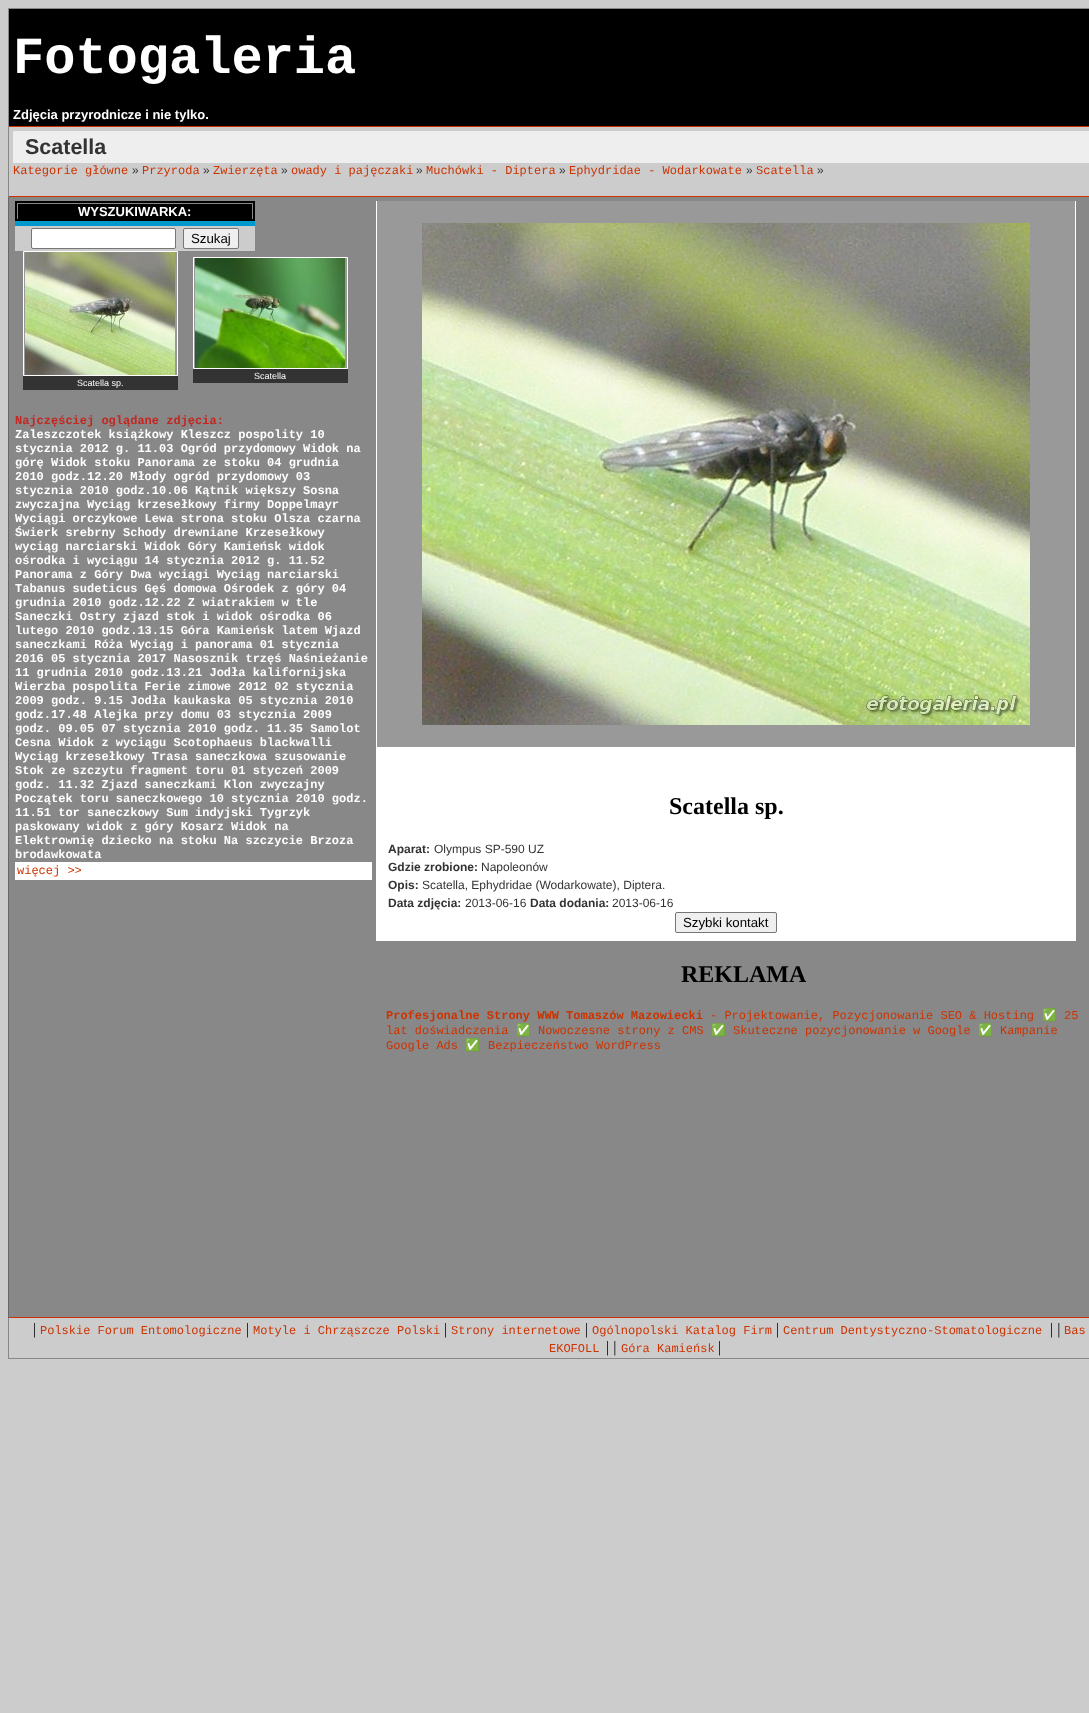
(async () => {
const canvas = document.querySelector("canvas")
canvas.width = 1089
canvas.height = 1713
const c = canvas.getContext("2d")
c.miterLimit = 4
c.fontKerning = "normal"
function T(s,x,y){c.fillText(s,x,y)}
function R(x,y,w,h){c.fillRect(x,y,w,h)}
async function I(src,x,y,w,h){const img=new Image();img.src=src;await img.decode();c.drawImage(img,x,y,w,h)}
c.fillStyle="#ccc"
R(0,0,1089,1713)
c.fillStyle="#000"
R(9,9,1080,117)
c.fillStyle="#888"
R(8,8,1081,1)
R(8,8,1,118)
c.font="bold 52px Liberation Mono"
c.fillStyle="#fff"
T("Fotogaleria",13,73)
c.font="bold 13px Liberation Sans"
T("Zdjęcia przyrodnicze i nie tylko.",13,119)
c.fillStyle="#c30"
R(8,126,1081,1)
R(8,196,1081,1)
c.fillStyle="#888"
R(8,126,1,71)
c.fillStyle="#eee"
R(13,131,1076,32)
c.font="bold 21.5px Liberation Sans"
c.fillStyle="#333"
T("Scatella",25,154)
c.font="12px Liberation Mono"
c.fillStyle="#c30"
T("Kategorie główne",13,174)
c.font="12px Liberation Sans"
c.fillStyle="#333"
T("»",132,174)
c.font="12px Liberation Mono"
c.fillStyle="#c30"
T("Przyroda",142,174)
c.font="12px Liberation Sans"
c.fillStyle="#333"
T("»",203,174)
c.font="12px Liberation Mono"
c.fillStyle="#c30"
T("Zwierzęta",213,174)
c.font="12px Liberation Sans"
c.fillStyle="#333"
T("»",281,174)
c.font="12px Liberation Mono"
c.fillStyle="#c30"
T("owady i pajęczaki",291,174)
c.font="12px Liberation Sans"
c.fillStyle="#333"
T("»",416,174)
c.font="12px Liberation Mono"
c.fillStyle="#c30"
T("Muchówki - Diptera",426,174)
c.font="12px Liberation Sans"
c.fillStyle="#333"
T("»",559,174)
c.font="12px Liberation Mono"
c.fillStyle="#c30"
T("Ephydridae - Wodarkowate",569,174)
c.font="12px Liberation Sans"
c.fillStyle="#333"
T("»",746,174)
c.font="12px Liberation Mono"
c.fillStyle="#c30"
T("Scatella",756,174)
c.font="12px Liberation Sans"
c.fillStyle="#333"
T("»",817,174)
c.fillStyle="#888"
R(9,197,1080,1120)
c.fillStyle="#c30"
R(8,1317,1081,1)
c.fillStyle="#666"
R(8,197,1,1121)
c.fillStyle="#000"
R(15,201,240,20)
c.fillStyle="#888"
R(17,203,236,1)
R(252,203,1,16)
R(17,203,1,16)
c.font="bold 13px Liberation Sans"
c.fillStyle="#fff"
T("WYSZUKIWARKA:",78,216)
c.fillStyle="#09c"
R(15,221,240,5)
c.fillStyle="#ccc"
R(15,226,240,25)
c.fillStyle="#fff"
c.beginPath()
c.roundRect(31.5,228.5,144,20,1.5)
c.fill()
c.strokeStyle="#767676"
c.stroke()
c.fillStyle="#efefef"
c.beginPath()
c.roundRect(183.5,228.5,55,20,1.5)
c.fill()
c.stroke()
c.font="13.25px Liberation Sans"
c.fillStyle="#000"
T("Szukaj",191,243)
c.fillStyle="#999"
c.beginPath()
c.rect(193.5,257.5,154,111)
c.fill()
c.strokeStyle="#fff"
c.stroke()
await I("1.png",195,258,150,110)
c.fillStyle="#333"
R(193,369,155,14)
c.font="9px Liberation Sans"
c.fillStyle="#fff"
T("Scatella",254,379)
c.fillStyle="#999"
c.beginPath()
c.rect(23.5,251.5,154,124)
c.fill()
c.stroke()
await I("2.png",25,252,150,123)
c.fillStyle="#333"
R(23,376,155,14)
c.fillStyle="#fff"
T("Scatella sp.",77,386)
c.font="bold 12px Liberation Mono"
c.fillStyle="#c52620"
T("Najczęściej oglądane zdjęcia:",15,424)
c.fillStyle="#fff"
T("Zaleszczotek książkowy Kleszcz pospolity 10",15,438)
T("stycznia 2012 g. 11.03 Ogród przydomowy Widok na",15,452)
T("górę Widok stoku Panorama ze stoku 04 grudnia",15,466)
T("2010 godz.12.20 Młody ogród przydomowy 03",15,480)
T("stycznia 2010 godz.10.06 Kątnik większy Sosna",15,494)
T("zwyczajna Wyciąg krzesełkowy firmy Doppelmayr",15,508)
T("Wyciągi orczykowe Lewa strona stoku Olsza czarna",15,522)
T("Świerk srebrny Schody drewniane Krzesełkowy",15,536)
T("wyciąg narciarski Widok Góry Kamieńsk widok",15,550)
T("ośrodka i wyciągu 14 stycznia 2012 g. 11.52",15,564)
T("Panorama z Góry Dwa wyciągi Wyciąg narciarski",15,578)
T("Tabanus sudeticus Gęś domowa Ośrodek z góry 04",15,592)
T("grudnia 2010 godz.12.22 Z wiatrakiem w tle",15,606)
T("Saneczki Ostry zjazd stok i widok ośrodka 06",15,620)
T("lutego 2010 godz.13.15 Góra Kamieńsk latem Wjazd",15,634)
T("saneczkami Róża Wyciąg i panorama 01 stycznia",15,648)
T("2016 05 stycznia 2017 Nasosznik trzęś Naśnieżanie",15,662)
T("11 grudnia 2010 godz.13.21 Jodła kalifornijska",15,676)
T("Wierzba pospolita Ferie zimowe 2012 02 stycznia",15,690)
T("2009 godz. 9.15 Jodła kaukaska 05 stycznia 2010",15,704)
T("godz.17.48 Alejka przy domu 03 stycznia 2009",15,718)
T("godz. 09.05 07 stycznia 2010 godz. 11.35 Samolot",15,732)
T("Cesna Widok z wyciągu Scotophaeus blackwalli",15,746)
T("Wyciąg krzesełkowy Trasa saneczkowa szusowanie",15,760)
T("Stok ze szczytu fragment toru 01 styczeń 2009",15,774)
T("godz. 11.32 Zjazd saneczkami Klon zwyczajny",15,788)
T("Początek toru saneczkowego 10 stycznia 2010 godz.",15,802)
T("11.51 tor saneczkowy Sum indyjski Tygrzyk",15,816)
T("paskowany widok z góry Kosarz Widok na",15,830)
T("Elektrownię dziecko na stoku Na szczycie Brzoza",15,844)
T("brodawkowata",15,858)
R(15,862,357,18)
c.font="12px Liberation Mono"
c.fillStyle="#c30"
T("więcej >>",17,874)
c.fillStyle="#fff"
R(1075,201,1,740)
R(376,201,1,740)
c.fillStyle="#999"
R(377,201,698,546)
await I("3.png",422,223,608,502)
c.fillStyle="#fff"
R(377,747,698,194)
c.font="bold 24px Liberation Serif"
c.fillStyle="#000"
T("Scatella sp.",669,814)
c.font="bold 12px Liberation Sans"
c.fillStyle="#333"
T("Aparat:",388,853)
c.font="12px Liberation Sans"
T("Olympus SP-590 UZ",434,853)
c.font="bold 12px Liberation Sans"
T("Gdzie zrobione:",388,871)
c.font="12px Liberation Sans"
T("Napoleonów",481,871)
c.font="bold 12px Liberation Sans"
T("Opis:",388,889)
c.font="12px Liberation Sans"
T("Scatella, Ephydridae (Wodarkowate), Diptera.",422,889)
c.font="bold 12px Liberation Sans"
T("Data zdjęcia:",388,907)
c.font="12px Liberation Sans"
T("2013-06-16",465,907)
c.font="bold 12px Liberation Sans"
T("Data dodania:",530,907)
c.font="12px Liberation Sans"
T("2013-06-16",612,907)
c.fillStyle="#efefef"
c.beginPath()
c.roundRect(675.5,912.5,101,20,1.5)
c.fill()
c.strokeStyle="#767676"
c.stroke()
c.font="13.25px Liberation Sans"
c.fillStyle="#000"
T("Szybki kontakt",683,927)
c.font="bold 24px Liberation Serif"
T("REKLAMA",681,982)
c.font="bold 12px Liberation Mono"
c.fillStyle="#c30"
T("Profesjonalne Strony WWW Tomaszów Mazowiecki",386,1019)
c.font="12px Liberation Mono"
T("- Projektowanie, Pozycjonowanie SEO & Hosting",710,1019)
c.font="12px Noto Color Emoji"
T("✅",1042,1019)
c.font="12px Liberation Mono"
T("25",1064,1019)
T("lat doświadczenia",386,1034)
c.font="12px Noto Color Emoji"
T("✅",516,1034)
c.font="12px Liberation Mono"
T("Nowoczesne strony z CMS",538,1034)
c.font="12px Noto Color Emoji"
T("✅",711,1034)
c.font="12px Liberation Mono"
T("Skuteczne pozycjonowanie w Google",733,1034)
c.font="12px Noto Color Emoji"
T("✅",978,1034)
c.font="12px Liberation Mono"
T("Kampanie",1000,1034)
T("Google Ads",386,1049)
c.font="12px Noto Color Emoji"
T("✅",465,1049)
c.font="12px Liberation Mono"
T("Bezpieczeństwo WordPress",488,1049)
c.fillStyle="#888"
R(8,1358,1081,1)
R(8,1318,1,41)
c.font="16px Liberation Serif"
c.fillStyle="#000"
T("|",33,1334)
c.font="12px Liberation Mono"
c.fillStyle="#c30"
T("Polskie Forum Entomologiczne",40,1334)
c.font="16px Liberation Serif"
c.fillStyle="#000"
T("|",246,1334)
c.font="12px Liberation Mono"
c.fillStyle="#c30"
T("Motyle i Chrząszcze Polski",253,1334)
c.font="16px Liberation Serif"
c.fillStyle="#000"
T("|",444,1334)
c.font="12px Liberation Mono"
c.fillStyle="#c30"
T("Strony internetowe",451,1334)
c.font="16px Liberation Serif"
c.fillStyle="#000"
T("|",585,1334)
c.font="12px Liberation Mono"
c.fillStyle="#c30"
T("Ogólnopolski Katalog Firm",592,1334)
c.font="16px Liberation Serif"
c.fillStyle="#000"
T("|",776,1334)
c.font="12px Liberation Mono"
c.fillStyle="#c30"
T("Centrum Dentystyczno-Stomatologiczne",783,1334)
c.font="16px Liberation Serif"
c.fillStyle="#000"
T("| |",1050,1334)
c.font="12px Liberation Mono"
c.fillStyle="#c30"
T("Bas",1064,1334)
T("EKOFOLL",549,1352)
c.font="16px Liberation Serif"
c.fillStyle="#000"
T("| |",606,1352)
c.font="12px Liberation Mono"
c.fillStyle="#c30"
T("Góra Kamieńsk",621,1352)
c.font="16px Liberation Serif"
c.fillStyle="#000"
T("|",718,1352)
})()
